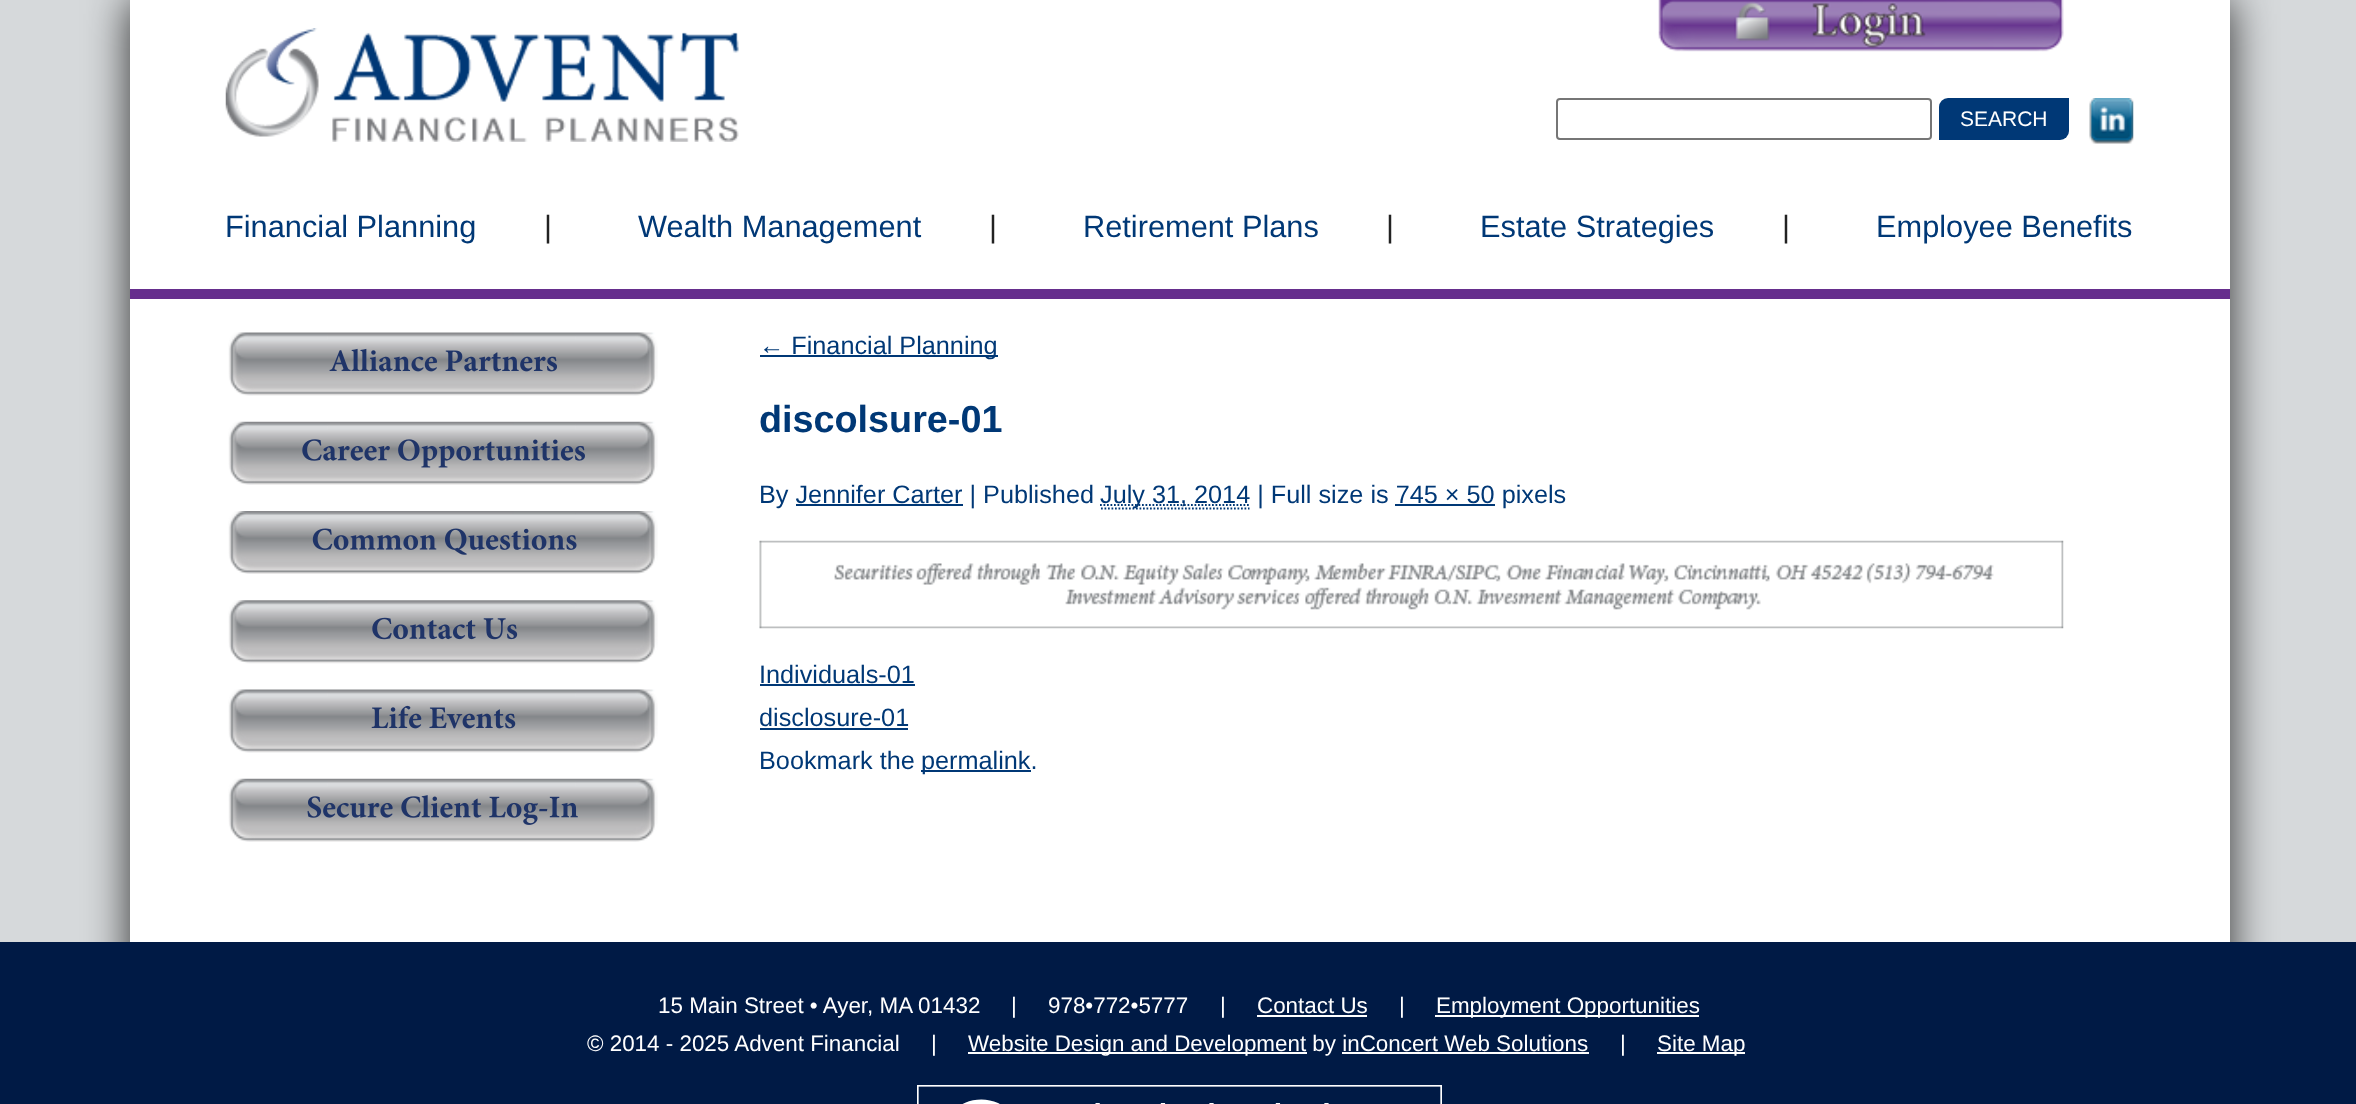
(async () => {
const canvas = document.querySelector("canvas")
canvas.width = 2356
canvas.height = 1104
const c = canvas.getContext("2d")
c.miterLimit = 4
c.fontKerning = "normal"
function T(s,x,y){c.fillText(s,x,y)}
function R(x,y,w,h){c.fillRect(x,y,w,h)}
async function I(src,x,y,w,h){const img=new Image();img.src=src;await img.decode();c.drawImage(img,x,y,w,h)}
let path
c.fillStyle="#d6d9db"
R(0,0,2356,1104)
c.fillStyle="#000000cc"
c.filter="blur(22px)"
c.beginPath()
c.rect(130,0,2100,1104)
c.fill()
c.filter="none"
c.fillStyle="#fff"
R(130,0,2100,942)
await I("1.png",225,28,514,114)
await I("2.png",1658,0,406,52)
c.beginPath()
c.roundRect(1557,99,374,40,3)
c.strokeStyle="#767676"
c.lineWidth=2
c.stroke()
c.fillStyle="#003876"
c.beginPath()
c.roundRect(1939,98,130,42,[9,0,9,0])
c.fill()
c.font="21px Liberation Sans"
c.fillStyle="#fff"
T("SEARCH",1960,126)
await I("3.png",2089,98,45,46)
c.font="30.75px Liberation Sans"
c.fillStyle="#003876"
T("Financial Planning",225,237)
c.fillStyle="#222"
T("|",544,237)
c.fillStyle="#003876"
T("Wealth Management",638,237)
c.fillStyle="#222"
T("|",989,237)
c.fillStyle="#003876"
T("Retirement Plans",1083,237)
c.fillStyle="#222"
T("|",1386,237)
c.fillStyle="#003876"
T("Estate Strategies",1480,237)
c.fillStyle="#222"
T("|",1782,237)
c.fillStyle="#003876"
T("Employee Benefits",1876,237)
c.fillStyle="#662e8d"
R(130,289,2100,10)
await I("4.png",228,332,430,64)
await I("5.png",329,348,228,24)
await I("6.png",228,421,430,64)
await I("7.png",302,439,283,29)
await I("8.png",228,511,430,63)
await I("9.png",312,528,265,27)
await I("10.png",228,600,430,64)
await I("11.png",372,617,146,23)
await I("4.png",228,689,430,64)
await I("12.png",371,705,145,24)
await I("6.png",228,778,430,64)
await I("13.png",307,795,271,30)
c.fillStyle="#003876"
R(760,355,238,2)
c.font="25.25px Liberation Sans"
T("← Financial Planning",759,354)
c.font="bold 37.75px Liberation Sans"
T("discolsure-01",759,432)
c.font="25.25px Liberation Sans"
T("By Jennifer Carter | Published",759,503)
path = new Path2D("M1101 508.5h148.5")
c.strokeStyle="#003876"
c.lineWidth=1.8
c.setLineDash([1.75,1.75])
c.stroke(path)
path = new Path2D("M1100 505h150")
c.stroke(path)
T("July 31, 2014 | Full size is 745 × 50 pixels",1100,503)
R(796,504,167,2)
R(1395,504,100,2)
await I("14.png",759,540,1305,89)
T("Individuals-01",759,683)
R(760,684,155,2)
T("disclosure-01",759,726)
R(760,728,148,2)
T("Bookmark the",759,769)
R(921,770,110,2)
T("permalink.",921,769)
c.fillStyle="#001a45"
R(0,942,2356,162)
c.font="22.4px Liberation Sans"
c.fillStyle="#fff"
T("15 Main Street • Ayer, MA 01432",658,1013)
T("|",1011,1013)
T("978•772•5777",1048,1013)
T("|",1220,1013)
T("Contact Us",1257,1013)
R(1257,1015,110,2)
T("|",1399,1013)
R(1435,1015,264,2)
T("Employment Opportunities",1436,1013)
T("© 2014 - 2025 Advent Financial",587,1051)
T("|",931,1051)
R(968,1052,339,2)
T("Website Design and Development by inConcert Web Solutions",968,1051)
R(1342,1052,247,2)
T("|",1620,1051)
R(1657,1052,88,2)
T("Site Map",1657,1051)
await I("15.png",917,1085,525,19)
})()
